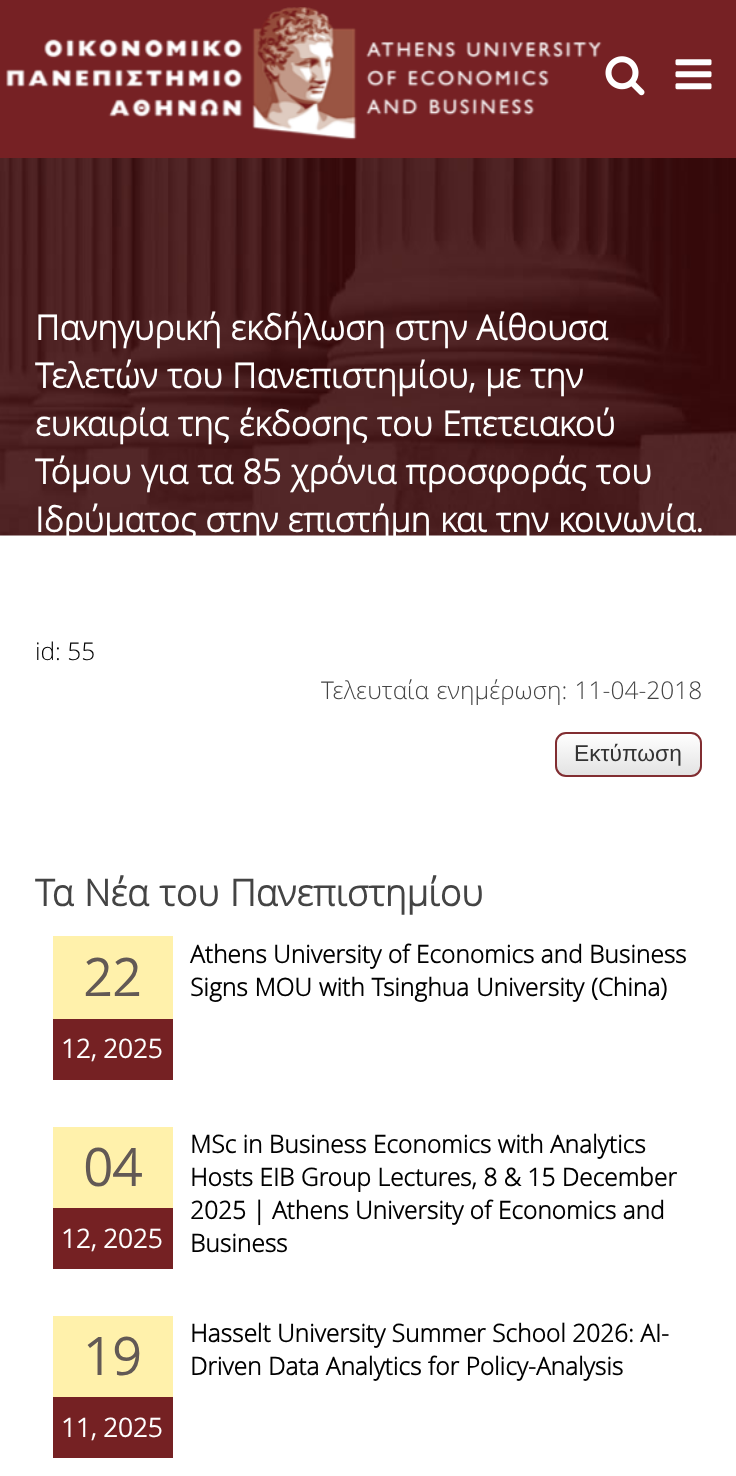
(async () => {
const canvas = document.querySelector("canvas")
canvas.width = 736
canvas.height = 1476
const c = canvas.getContext("2d")
c.miterLimit = 4
c.fontKerning = "normal"
function T(s,x,y){c.fillText(s,x,y)}
function R(x,y,w,h){c.fillRect(x,y,w,h)}
async function I(src,x,y,w,h){const img=new Image();img.src=src;await img.decode();c.drawImage(img,x,y,w,h)}
let gradient
c.fillStyle="#fff"
R(0,0,736,1476)
c.fillStyle="#762124"
R(0,0,736,158)
await I("1.png",6,7,596,133)
await I("2.png",605,56,40,40)
await I("3.png",675,59,37,31)
await I("4.png",0,158,736,378)
c.font="bold 34.25px Open Sans"
c.fillStyle="#fff"
T("Πανηγυρική εκδήλωση στην Αίθουσα",35,340)
c.wordSpacing="0.5px"
T("Τελετών του Πανεπιστημίου, με την",35,388)
T("ευκαιρία της έκδοσης του Επετειακού",35,436)
T("Τόμου για τα 85 χρόνια προσφοράς του",35,484)
c.wordSpacing="0.25px"
T("Ιδρύματος στην επιστήμη και την κοινωνία.",35,532)
c.wordSpacing="0px"
c.font="300 24.5px Open Sans"
c.fillStyle="#000"
T("id: 55",35,660)
c.wordSpacing="1px"
c.fillStyle="#444"
T("Τελευταία ενημέρωση: 11-04-2018",321,699)
c.save()
c.beginPath()
c.roundRect(555,732,147,45,11)
c.clip()
gradient = c.createLinearGradient(628,733,628,775)
gradient.addColorStop(0,"#fff")
gradient.addColorStop(1,"#e3e3e3")
c.fillStyle = gradient
R(555,733,147,42)
c.restore()
c.beginPath()
c.roundRect(556,733,145,43,10)
c.strokeStyle="#812d31"
c.lineWidth=2
c.stroke()
c.wordSpacing="0px"
c.font="22.75px Liberation Sans"
c.fillStyle="#333"
T("Εκτύπωση",574,761)
c.wordSpacing="1px"
c.font="bold 36.75px Open Sans"
c.fillStyle="#444"
T("Τα Νέα του Πανεπιστημίου",35,906)
c.fillStyle="#752123"
R(53,1019,120,61)
c.fillStyle="#fff1ab"
R(53,936,120,83)
c.wordSpacing="0px"
c.font="bold 51px Open Sans"
c.fillStyle="#625955"
T("22",83,996)
c.font="bold 26px Open Sans"
c.fillStyle="#fff"
T("12, 2025",61,1058)
c.font="bold 24.5px Open Sans"
c.fillStyle="#000"
T("Athens University of Economics and Business",190,963)
c.wordSpacing="0.5px"
T("Signs MOU with Tsinghua University (China)",190,996)
c.fillStyle="#752123"
R(53,1208,120,61)
c.fillStyle="#fff1ab"
R(53,1127,120,81)
c.wordSpacing="0px"
c.font="bold 51px Open Sans"
c.fillStyle="#625955"
T("04",83,1186)
c.font="bold 26px Open Sans"
c.fillStyle="#fff"
T("12, 2025",61,1248)
c.font="bold 24.5px Open Sans"
c.fillStyle="#000"
T("MSc in Business Economics with Analytics",190,1153)
T("Hosts EIB Group Lectures, 8 & 15 December",190,1186)
T("2025 | Athens University of Economics and",190,1219)
T("Business",190,1252)
c.fillStyle="#752123"
R(53,1397,120,61)
c.fillStyle="#fff1ab"
R(53,1316,120,81)
c.font="bold 51px Open Sans"
c.fillStyle="#625955"
T("19",83,1375)
c.font="bold 26px Open Sans"
c.fillStyle="#fff"
T("11, 2025",61,1437)
c.font="bold 24.5px Open Sans"
c.fillStyle="#000"
T("Hasselt University Summer School 2026: AI-",190,1342)
T("Driven Data Analytics for Policy-Analysis",190,1375)
})()
